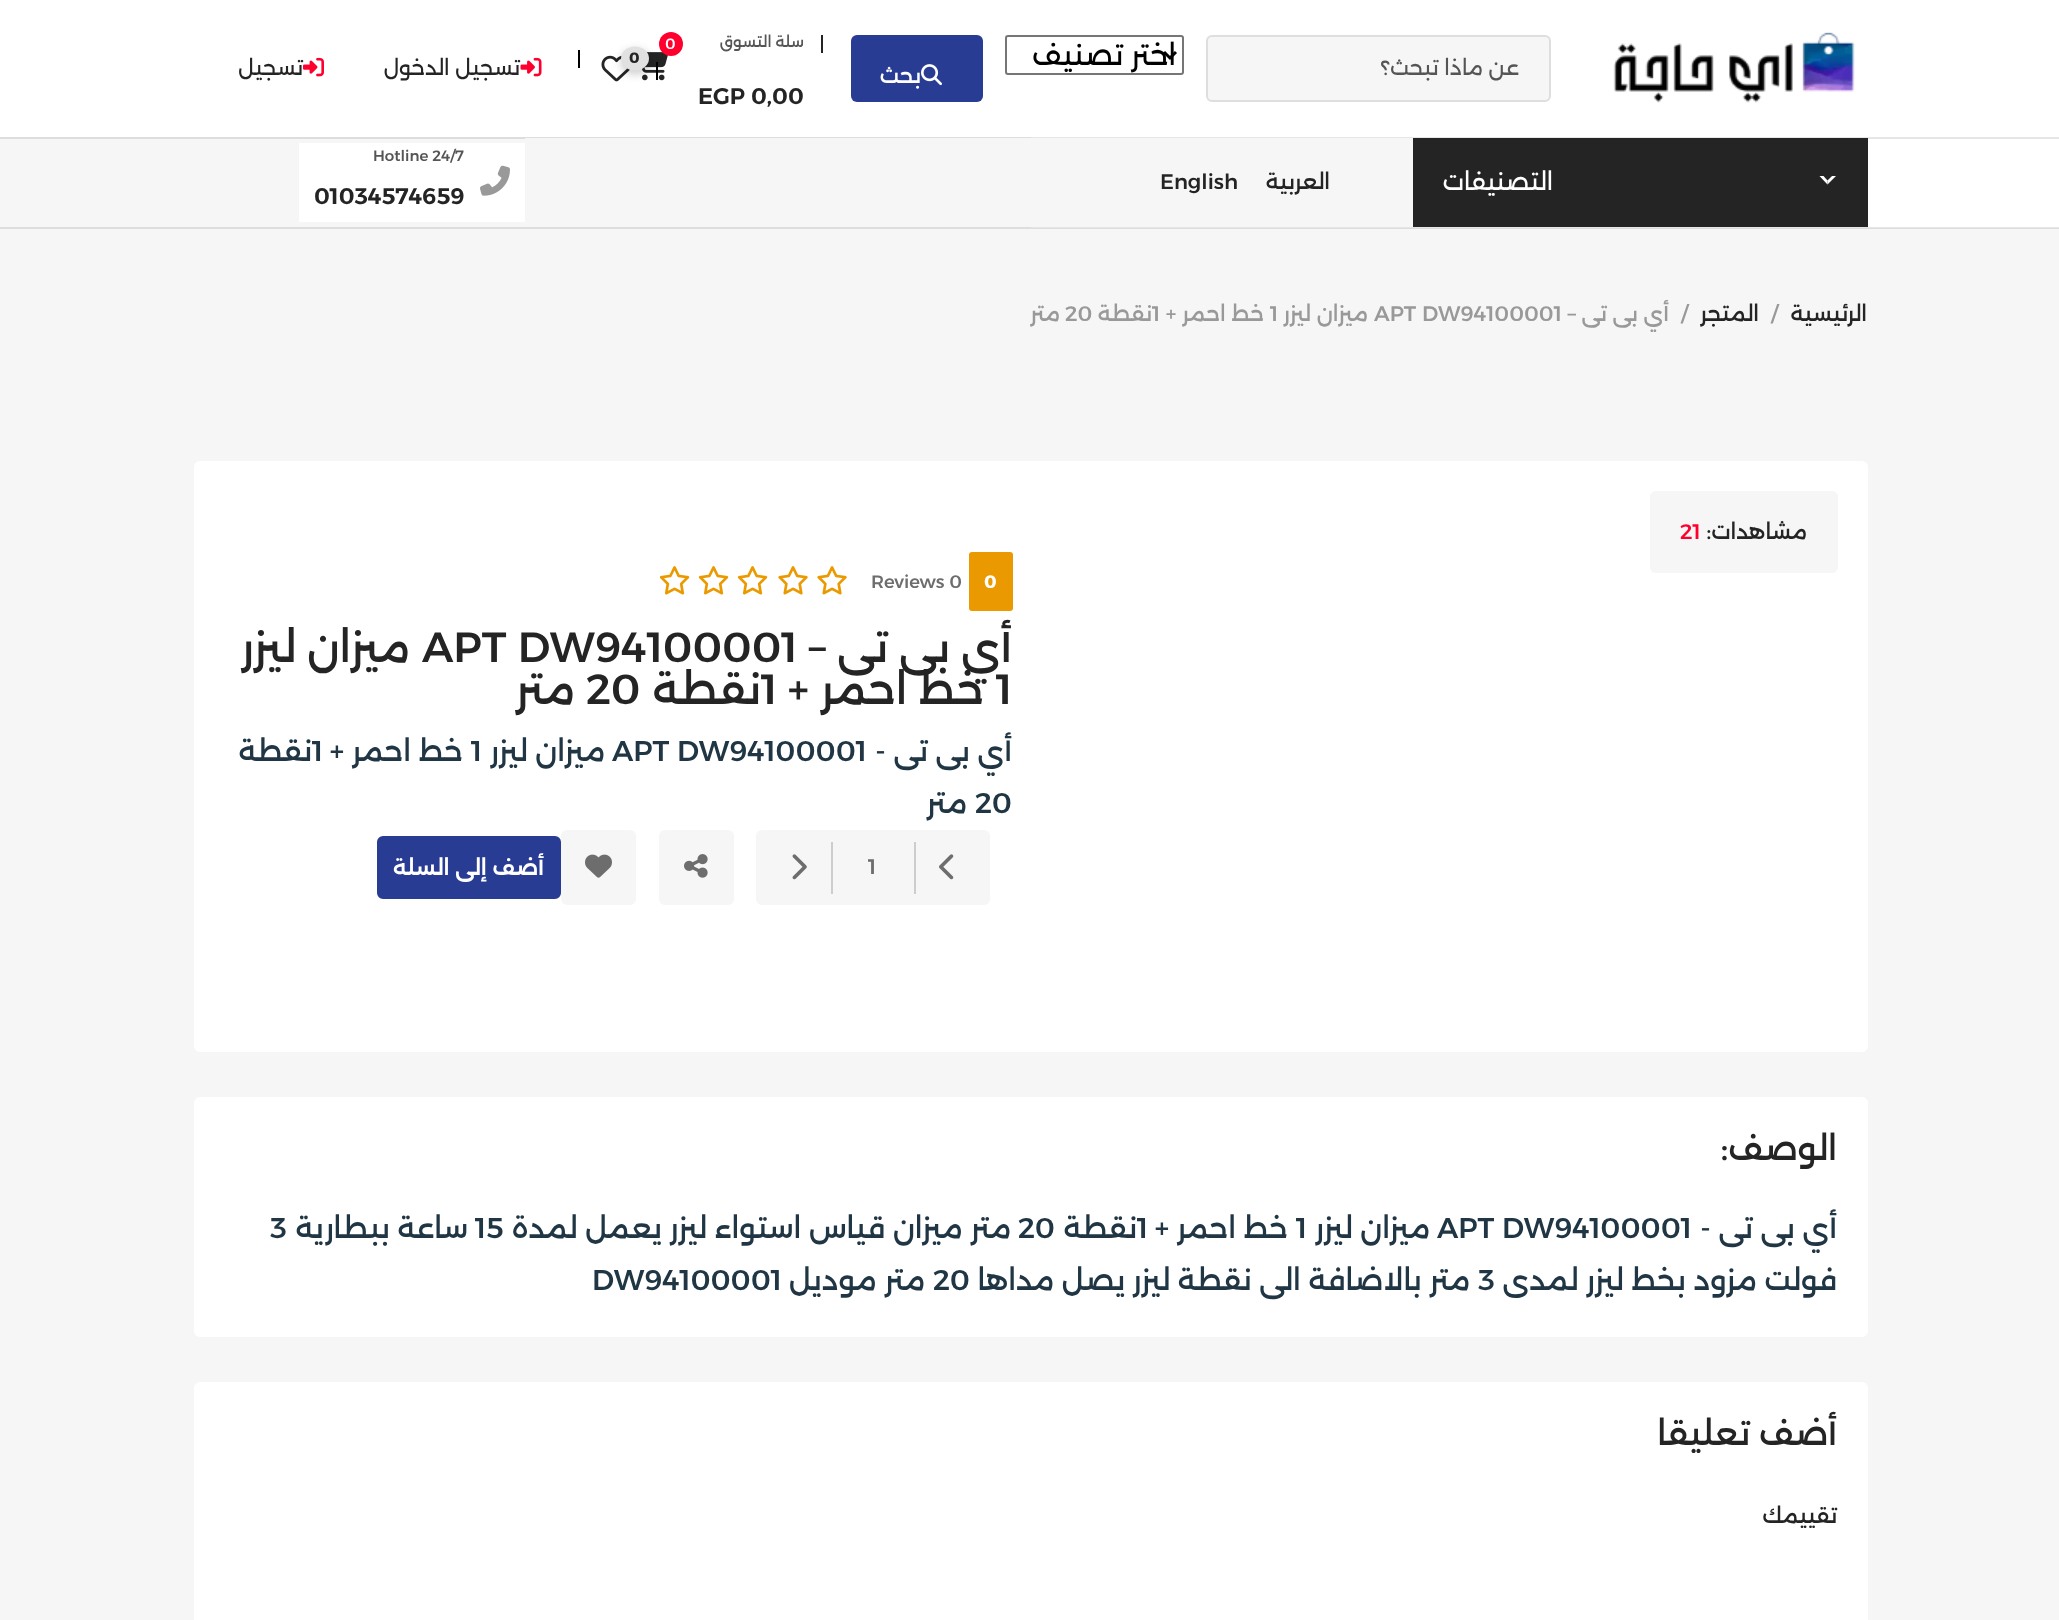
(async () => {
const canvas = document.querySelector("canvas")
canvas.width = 2059
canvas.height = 1620
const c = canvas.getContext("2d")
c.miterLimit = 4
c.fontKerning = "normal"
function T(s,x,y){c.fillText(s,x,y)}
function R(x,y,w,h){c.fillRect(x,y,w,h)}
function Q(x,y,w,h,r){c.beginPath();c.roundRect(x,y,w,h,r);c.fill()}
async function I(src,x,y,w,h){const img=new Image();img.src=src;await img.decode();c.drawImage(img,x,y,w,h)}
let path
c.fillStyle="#f6f6f6"
R(0,0,2059,1620)
c.fillStyle="#ddd"
R(0,227,2059,2)
R(0,137,1031,2)
c.fillStyle="#fff"
R(0,0,2059,137)
await I("1.png",1613,32,242,71)
c.fillStyle="#f6f6f6"
c.beginPath()
c.roundRect(1207,36,343,65,5)
c.fill()
c.strokeStyle="#dedede"
c.lineWidth=2
c.stroke()
c.direction="rtl"
c.font="21px Alexandria"
c.fillStyle="#555"
T("عن ماذا تبحث؟",1519,75)
c.beginPath()
c.roundRect(1006,36,177,38,2)
c.strokeStyle="#767676"
c.stroke()
path = new Path2D("M1164 52l6 6l6-6")
c.strokeStyle="#000"
c.lineWidth=3
c.stroke(path)
c.font="28.5px Alexandria"
c.fillStyle="#000"
T("اختر تصنيف",1176,65)
c.fillStyle="#283c94"
Q(851,35,132,67,6)
await I("2.png",921,64,21,22)
c.font="500 21px Alexandria"
c.fillStyle="#fff"
T("بحث",921,83)
c.fillStyle="#242424"
R(821,35,2,18)
c.font="500 15px Alexandria"
c.fillStyle="#555"
T("سلة التسوق",804,47)
c.direction="ltr"
c.font="600 22.5px Alexandria"
c.fillStyle="#242424"
T("0,00",751,104)
T("EGP",698,104)
await I("3.png",641,52,27,29)
c.fillStyle="#ff002e"
c.beginPath()
c.arc(671,44,12,0,7)
c.fill()
c.font="500 15px Alexandria"
c.fillStyle="#fff"
T("0",665,49)
c.fillStyle="#000"
R(656,62,2,18)
await I("4.png",601,55,30,27)
c.fillStyle="#00000033"
c.filter="blur(4px)"
c.beginPath()
c.roundRect(621,50,29,24,12)
c.fill()
c.filter="none"
c.fillStyle="#e1e1e1"
c.beginPath()
c.ellipse(635,58.5,14,12,0,0,7)
c.fill()
c.font="bold 15px Alexandria"
c.fillStyle="#242424"
T("0",629,63)
c.fillStyle="#000"
R(578,50,2,18)
await I("5.png",520,57,22,20)
c.direction="rtl"
c.font="21px Alexandria"
c.fillStyle="#242424"
T("تسجيل الدخول",520,75)
await I("6.png",303,57,21,20)
T("تسجيل",303,75)
c.fillStyle="#fff"
R(1868,139,191,88)
c.fillStyle="#e6e6e6"
R(1031,227,1028,1)
R(1031,137,1028,2)
c.fillStyle="#242424"
R(1413,138,455,89)
c.fillStyle="#fff"
path = new Path2D("M1836 176l-8.5 8.5v-4l4.5-4.5z")
c.fill(path)
path = new Path2D("M1827.5 184.5l-8-8.5h4l4 4.5z")
c.fill(path)
c.font="24px Alexandria"
T("التصنيفات",1553,190)
c.fillStyle="#f6f6f6"
R(525,138,888,1)
c.font="500 21px Alexandria"
c.fillStyle="#242424"
T("العربية",1330,189)
c.direction="ltr"
T("English",1160,189)
c.fillStyle="#fff"
R(299,143,226,79)
await I("7.png",480,165,30,31)
c.font="500 15px Alexandria"
c.fillStyle="#555"
T("Hotline 24/7",373,161)
c.font="600 22.5px Alexandria"
c.fillStyle="#242424"
T("01034574659",314,204)
c.direction="rtl"
c.font="500 21px Alexandria"
T("الرئيسية",1867,321)
c.direction="ltr"
c.fillStyle="#999"
T("/",1771,321)
c.direction="rtl"
c.fillStyle="#242424"
T("المتجر",1759,321)
c.direction="ltr"
c.fillStyle="#999"
T("/",1681,321)
c.direction="rtl"
T("أي بى تى –",1669,321)
c.direction="ltr"
T("APT DW94100001",1374,321)
c.direction="rtl"
T("ميزان ليزر",1368,321)
c.direction="ltr"
T("1",1270,321)
c.direction="rtl"
T("خط احمر +",1264,321)
c.direction="ltr"
T("1",1152,321)
c.direction="rtl"
T("نقطة",1152,321)
c.direction="ltr"
T("20",1065,321)
c.direction="rtl"
T("متر",1060,321)
c.fillStyle="#fff"
Q(194,461,1674,591,6)
c.fillStyle="#f6f6f6"
Q(1650,491,188,82,6)
c.fillStyle="#242424"
T("مشاهدات:",1807,539)
c.direction="ltr"
c.fillStyle="#ff002e"
T("21",1680,539)
c.fillStyle="#ea9a00"
Q(969,552,44,59,3)
c.font="bold 18px Alexandria"
c.fillStyle="#fff"
T("0",984,588)
c.font="500 18px Alexandria"
c.fillStyle="#6d6d6d"
T("Reviews 0",871,588)
await I("8.png",817,566,30,29)
await I("8.png",778,566,30,29)
await I("9.png",737,566,31,29)
await I("9.png",698,566,31,29)
await I("9.png",659,566,31,29)
c.direction="rtl"
c.font="500 42px Alexandria"
c.fillStyle="#242424"
T("أي بى تى –",1012,662)
c.direction="ltr"
T("APT DW94100001",422,662)
c.direction="rtl"
T("ميزان ليزر",410,662)
c.direction="ltr"
T("1",996,704)
c.direction="rtl"
T("خط احمر +",984,704)
c.direction="ltr"
T("1",761,704)
c.direction="rtl"
T("نقطة",761,704)
c.direction="ltr"
T("20",586,704)
c.direction="rtl"
T("متر",575,704)
c.font="500 28.5px Alexandria"
c.fillStyle="#203644"
T("أي بى تى -",1012,761)
c.direction="ltr"
T("APT DW94100001",612,761)
c.direction="rtl"
T("ميزان ليزر",605,761)
c.direction="ltr"
T("1",471,761)
c.direction="rtl"
T("خط احمر +",463,761)
c.direction="ltr"
T("1",312,761)
c.direction="rtl"
T("نقطة",312,761)
c.direction="ltr"
T("20",975,813)
c.direction="rtl"
T("متر",967,813)
c.fillStyle="#f6f6f6"
Q(756,830,234,75,6)
await I("10.png",939,854,15,26)
c.fillStyle="#cdcdcd"
R(914,842,2,52)
R(831,842,2,52)
c.direction="ltr"
c.font="500 21px Alexandria"
c.fillStyle="#6d6d6d"
T("1",868,874)
await I("11.png",792,854,15,26)
c.fillStyle="#f6f6f6"
Q(659,830,75,75,6)
await I("12.png",684,854,24,24)
Q(561,830,75,75,6)
await I("13.png",585,854,27,24)
c.fillStyle="#283c94"
c.beginPath()
c.roundRect(378,837,182,61,5)
c.fill()
c.strokeStyle="#283c94"
c.lineWidth=2
c.stroke()
c.direction="rtl"
c.font="600 21px Alexandria"
c.fillStyle="#fff"
T("أضف إلى السلة",544,875)
Q(194,1097,1674,240,6)
c.font="500 33px Alexandria"
c.fillStyle="#242424"
T("الوصف:",1837,1160)
c.font="500 28.5px Alexandria"
c.fillStyle="#203644"
T("أي بى تى -",1837,1238)
c.direction="ltr"
T("APT DW94100001",1437,1238)
c.direction="rtl"
T("ميزان ليزر",1430,1238)
c.direction="ltr"
T("1",1296,1238)
c.direction="rtl"
T("خط احمر +",1288,1238)
c.direction="ltr"
T("1",1137,1238)
c.direction="rtl"
T("نقطة",1137,1238)
c.direction="ltr"
T("20",1018,1238)
c.direction="rtl"
T("متر ميزان قياس استواء ليزر يعمل لمدة",1011,1238)
c.direction="ltr"
T("15",475,1238)
c.direction="rtl"
T("ساعة ببطارية",468,1238)
c.direction="ltr"
T("3",270,1238)
c.direction="rtl"
T("فولت مزود بخط ليزر لمدى",1837,1290)
c.direction="ltr"
T("3",1478,1290)
c.direction="rtl"
T("متر بالاضافة الى نقطة ليزر يصل مداها",1470,1290)
c.direction="ltr"
T("20",933,1290)
c.direction="rtl"
T("متر موديل",925,1290)
c.direction="ltr"
T("DW94100001",592,1290)
c.fillStyle="#fff"
Q(194,1382,1674,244,6)
c.direction="rtl"
c.font="500 33px Alexandria"
c.fillStyle="#242424"
T("أضف تعليقا",1837,1445)
c.font="500 21px Alexandria"
T("تقييمك",1837,1523)
})()
